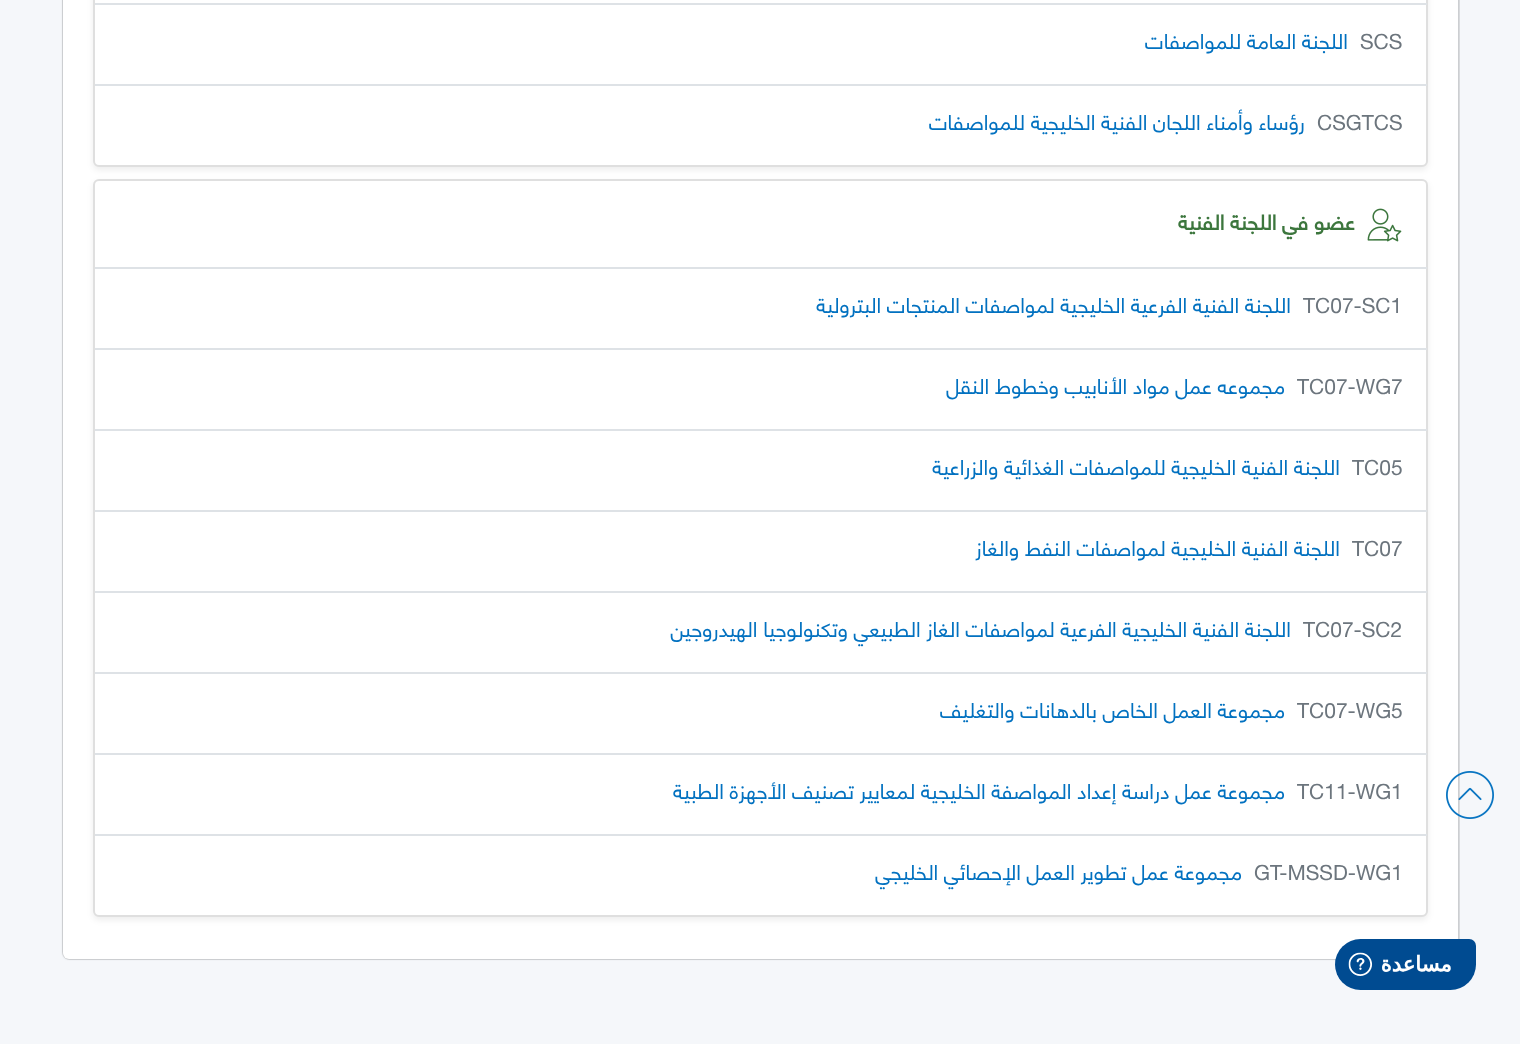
(async () => {
const canvas = document.querySelector("canvas")
canvas.width = 1520
canvas.height = 1044
const c = canvas.getContext("2d")
c.miterLimit = 4
c.fontKerning = "normal"
function T(s,x,y){c.fillText(s,x,y)}
function R(x,y,w,h){c.fillRect(x,y,w,h)}
function Q(x,y,w,h,r){c.beginPath();c.roundRect(x,y,w,h,r);c.fill()}
async function I(src,x,y,w,h){const img=new Image();img.src=src;await img.decode();c.drawImage(img,x,y,w,h)}
c.fillStyle="#f5f7fa"
R(0,0,1520,1044)
c.fillStyle="#00000033"
c.filter="blur(1px)"
c.beginPath()
c.roundRect(63,-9,1395,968,6)
c.fill()
c.filter="none"
c.beginPath()
c.roundRect(63,-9,1396,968,7)
c.strokeStyle="#0000001a"
c.lineWidth=2
c.stroke()
c.fillStyle="#fff"
Q(63,-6,1395,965,6)
await I("1.png",1446,771,48,48)
c.fillStyle="#00000012"
c.filter="blur(3px)"
c.beginPath()
c.roundRect(93,-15,1335,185,6)
c.fill()
c.filter="none"
c.fillStyle="#fff"
c.beginPath()
c.roundRect(94,-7,1333,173,5)
c.fill()
c.strokeStyle="#dfdfdf"
c.stroke()
c.fillStyle="#dee2e6"
R(95,3,1332,2)
c.font="21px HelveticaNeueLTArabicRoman"
c.fillStyle="#6c757d"
T("SCS",1360,49)
c.direction="rtl"
c.fillStyle="#0271c0"
T("اللجنة العامة للمواصفات",1348,49)
c.fillStyle="#dee2e6"
R(95,84,1332,2)
c.direction="ltr"
c.fillStyle="#6c757d"
T("CSGTCS",1317,130)
c.direction="rtl"
c.fillStyle="#0271c0"
T("رؤساء وأمناء اللجان الفنية الخليجية للمواصفات",1305,130)
c.fillStyle="#00000012"
c.filter="blur(3px)"
c.beginPath()
c.roundRect(93,182,1335,738,6)
c.fill()
c.filter="none"
c.fillStyle="#fff"
c.beginPath()
c.roundRect(94,180,1333,736,5)
c.fill()
c.stroke()
await I("2.png",1367,208,35,34)
c.font="bold 21px HelveticaNeueLTArabicRoman"
c.fillStyle="#3c763d"
T("عضو في اللجنة الفنية",1355,230)
c.fillStyle="#dee2e6"
R(95,267,1332,2)
c.direction="ltr"
c.font="21px HelveticaNeueLTArabicRoman"
c.fillStyle="#6c757d"
T("TC07-SC1",1303,313)
c.direction="rtl"
c.fillStyle="#0271c0"
T("اللجنة الفنية الفرعية الخليجية لمواصفات المنتجات البترولية",1291,313)
c.fillStyle="#dee2e6"
R(95,348,1332,2)
c.direction="ltr"
c.fillStyle="#6c757d"
T("TC07-WG7",1297,394)
c.direction="rtl"
c.fillStyle="#0271c0"
T("مجموعه عمل مواد الأنابيب وخطوط النقل",1285,394)
c.fillStyle="#dee2e6"
R(95,429,1332,2)
c.direction="ltr"
c.fillStyle="#6c757d"
T("TC05",1352,475)
c.direction="rtl"
c.fillStyle="#0271c0"
T("اللجنة الفنية الخليجية للمواصفات الغذائية والزراعية",1340,475)
c.fillStyle="#dee2e6"
R(95,510,1332,2)
c.direction="ltr"
c.fillStyle="#6c757d"
T("TC07",1352,556)
c.direction="rtl"
c.fillStyle="#0271c0"
T("اللجنة الفنية الخليجية لمواصفات النفط والغاز",1340,556)
c.fillStyle="#dee2e6"
R(95,591,1332,2)
c.direction="ltr"
c.fillStyle="#6c757d"
T("TC07-SC2",1303,637)
c.direction="rtl"
c.fillStyle="#0271c0"
T("اللجنة الفنية الخليجية الفرعية لمواصفات الغاز الطبيعي وتكنولوجيا الهيدروجين",1291,637)
c.fillStyle="#dee2e6"
R(95,672,1332,2)
c.direction="ltr"
c.fillStyle="#6c757d"
T("TC07-WG5",1297,718)
c.direction="rtl"
c.fillStyle="#0271c0"
T("مجموعة العمل الخاص بالدهانات والتغليف",1285,718)
c.fillStyle="#dee2e6"
R(95,753,1332,2)
c.direction="ltr"
c.fillStyle="#6c757d"
T("TC11-WG1",1297,799)
c.direction="rtl"
c.fillStyle="#0271c0"
T("مجموعة عمل دراسة إعداد المواصفة الخليجية لمعايير تصنيف الأجهزة الطبية",1285,799)
c.fillStyle="#dee2e6"
R(95,834,1332,2)
c.direction="ltr"
c.fillStyle="#6c757d"
T("GT-MSSD-WG1",1254,880)
c.direction="rtl"
c.fillStyle="#0271c0"
T("مجموعة عمل تطوير العمل الإحصائي الخليجي",1242,880)
await I("3.png",1335,939,141,51)
})()
